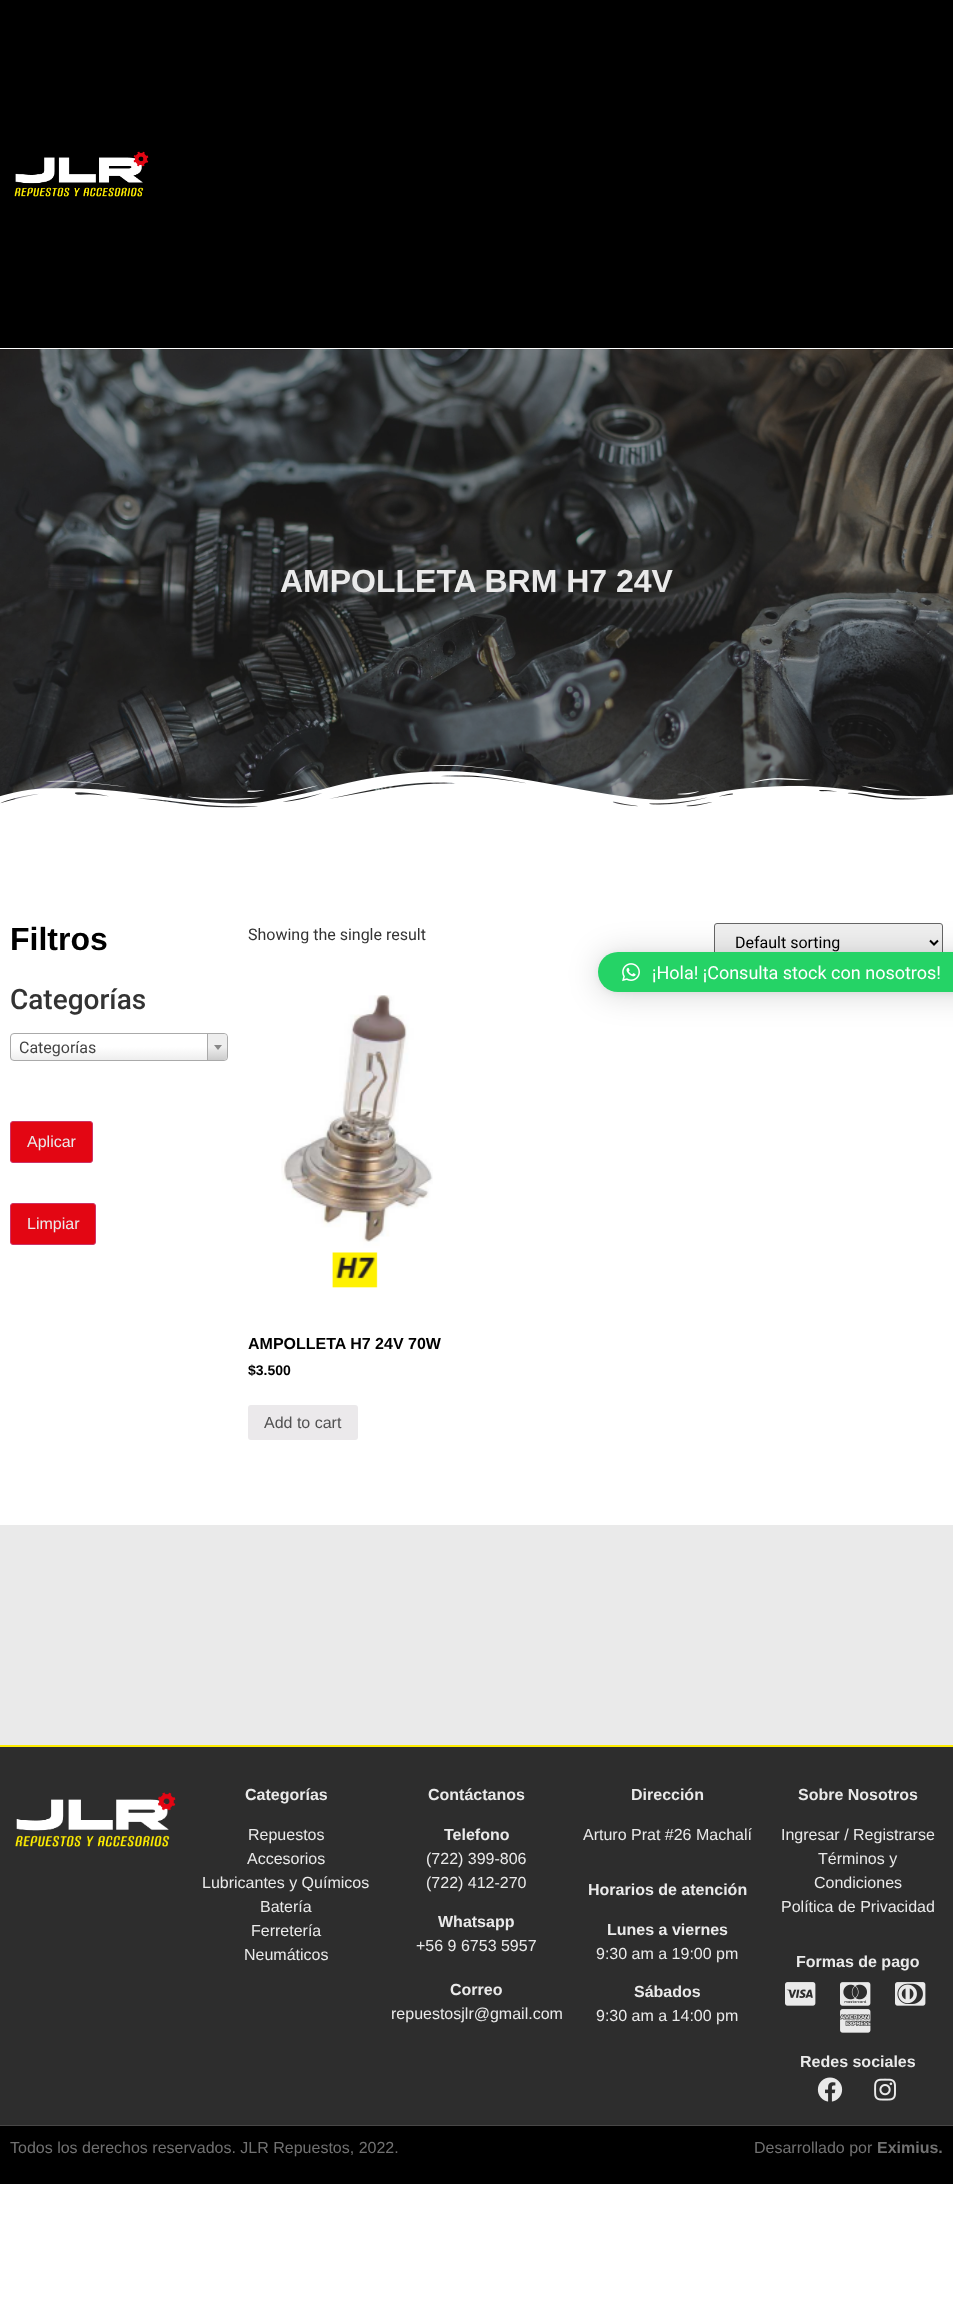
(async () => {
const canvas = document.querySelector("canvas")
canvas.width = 953
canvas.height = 2320
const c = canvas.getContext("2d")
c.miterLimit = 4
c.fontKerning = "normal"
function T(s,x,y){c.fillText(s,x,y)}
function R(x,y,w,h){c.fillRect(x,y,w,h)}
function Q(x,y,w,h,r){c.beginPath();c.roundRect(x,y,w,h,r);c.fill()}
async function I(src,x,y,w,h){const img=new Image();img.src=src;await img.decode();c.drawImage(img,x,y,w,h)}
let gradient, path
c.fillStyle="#fff"
R(0,0,953,2320)
c.fillStyle="#000"
R(0,0,953,348)
await I("1.png",14,151,135,46)
await I("2.png",0,349,953,459)
c.font="bold 32px Liberation Sans"
c.fillStyle="#eaeaea"
T("AMPOLLETA BRM H7 24V",280,592)
await I("3.png",0,765,953,48)
c.fillStyle="#000"
T("Filtros",10,950)
c.font="500 28px Roboto"
c.fillStyle="#333"
T("Categorías",10,1009)
c.save()
c.beginPath()
c.roundRect(10,1033,218,28,4)
c.clip()
gradient = c.createLinearGradient(119,1034,119,1060)
gradient.addColorStop(.5,"#fff")
gradient.addColorStop(1,"#eee")
c.fillStyle = gradient
R(10,1034,218,26)
c.restore()
c.beginPath()
c.roundRect(10.5,1033.5,217,27,3.5)
c.strokeStyle="#aaa"
c.stroke()
c.font="16px Roboto"
c.fillStyle="#444"
T("Categorías",19,1053)
gradient = c.createLinearGradient(218,1034,218,1060)
gradient.addColorStop(.5,"#eee")
gradient.addColorStop(1,"#ccc")
c.fillStyle = gradient
c.beginPath()
c.roundRect(207,1034,20,26,[0,4,4,0])
c.fill()
c.fillStyle="#aaa"
R(207,1034,1,26)
c.fillStyle="#888"
path = new Path2D("M214 1045h8l-4 5z")
c.fill(path)
c.fillStyle="#e30613"
c.beginPath()
c.roundRect(10.5,1121.5,82,41,2.5)
c.fill()
c.strokeStyle="#c36"
c.stroke()
c.font="16px Liberation Sans"
c.fillStyle="#eaeaea"
T("Aplicar",27,1147)
c.fillStyle="#e30613"
c.beginPath()
c.roundRect(10.5,1203.5,85,41,2.5)
c.fill()
c.stroke()
c.fillStyle="#eaeaea"
T("Limpiar",27,1229)
c.font="16px Roboto"
c.fillStyle="#333"
T("Showing the single result",248,940)
c.fillStyle="#efefef"
c.beginPath()
c.roundRect(714.5,923.5,228,38,2.5)
c.fill()
c.strokeStyle="#666"
c.stroke()
path = new Path2D("M930 940.5l4 4l4-4")
c.strokeStyle="#000"
c.lineWidth=2
c.stroke(path)
c.fillStyle="#000"
T("Default sorting",735,948)
await I("4.png",281,995,152,293)
c.font="bold 16px Liberation Sans"
T("AMPOLLETA H7 24V 70W",248,1349)
c.font="bold 14px Liberation Sans"
T("$3.500",248,1375)
c.fillStyle="#ebe9eb"
Q(248,1405,110,35,3)
c.font="16px Liberation Sans"
c.fillStyle="#515151"
T("Add to cart",264,1428)
c.fillStyle="#eaeaea"
R(0,1525,953,220)
c.fillStyle="#00000029"
c.filter="blur(16px)"
c.beginPath()
c.roundRect(598,954,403,40,20)
c.fill()
c.filter="none"
c.fillStyle="#0000000f"
c.filter="blur(3px)"
c.beginPath()
c.roundRect(598,953,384,40,20)
c.fill()
c.filter="none"
c.fillStyle="#25d366"
Q(598,952,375,40,20)
await I("5.png",622,963,18,19)
c.font="18px Roboto"
c.fillStyle="#fff"
T("¡Hola! ¡Consulta stock con nosotros!",652,979)
c.fillStyle="#2d2d2d"
R(0,1747,953,378)
c.fillStyle="#ffed00"
R(0,1745,953,2)
await I("6.png",15,1792,161,55)
c.font="bold 16px Liberation Sans"
c.fillStyle="#eaeaea"
T("Categorías",245,1800)
c.font="16px Liberation Sans"
T("Repuestos",248,1840)
T("Accesorios",247,1864)
T("Lubricantes y Químicos",202,1888)
T("Batería",260,1912)
T("Ferretería",251,1936)
T("Neumáticos",244,1960)
c.font="bold 16px Liberation Sans"
T("Contáctanos",428,1800)
T("Telefono",444,1840)
c.font="16px Liberation Sans"
T("(722) 399-806",426,1864)
T("(722) 412-270",426,1888)
c.font="bold 16px Liberation Sans"
T("Whatsapp",438,1927)
c.font="16px Liberation Sans"
T("+56 9 6753 5957",416,1951)
c.font="bold 16px Liberation Sans"
T("Correo",450,1995)
c.font="16px Liberation Sans"
T("repuestosjlr@gmail.com",391,2019)
c.font="bold 16px Liberation Sans"
T("Dirección",631,1800)
c.font="16px Liberation Sans"
T("Arturo Prat #26 Machalí",583,1840)
c.font="bold 16px Liberation Sans"
T("Horarios de atención",588,1895)
T("Lunes a viernes",607,1935)
c.font="16px Liberation Sans"
T("9:30 am a 19:00 pm",596,1959)
c.font="bold 16px Liberation Sans"
T("Sábados",634,1997)
c.font="16px Liberation Sans"
T("9:30 am a 14:00 pm",596,2021)
c.font="bold 16px Liberation Sans"
T("Sobre Nosotros",798,1800)
c.font="16px Liberation Sans"
T("Ingresar / Registrarse",781,1840)
T("Términos y",818,1864)
T("Condiciones",814,1888)
T("Política de Privacidad",781,1912)
c.font="bold 16px Liberation Sans"
T("Formas de pago",796,1967)
await I("7.png",785,1982,31,24)
await I("8.png",840,1982,31,24)
await I("9.png",895,1982,31,24)
await I("10.png",840,2009,31,24)
T("Redes sociales",800,2067)
await I("11.png",817,2077,26,25)
await I("12.png",874,2078,22,23)
c.fillStyle="#000"
R(0,2126,953,58)
c.fillStyle="#474646"
R(0,2125,953,1)
c.font="16px Liberation Sans"
c.fillStyle="#717171"
T("Todos los derechos reservados. JLR Repuestos, 2022.",10,2153)
T("Desarrollado por",754,2153)
c.font="bold 16px Liberation Sans"
T("Eximius.",877,2153)
})()
